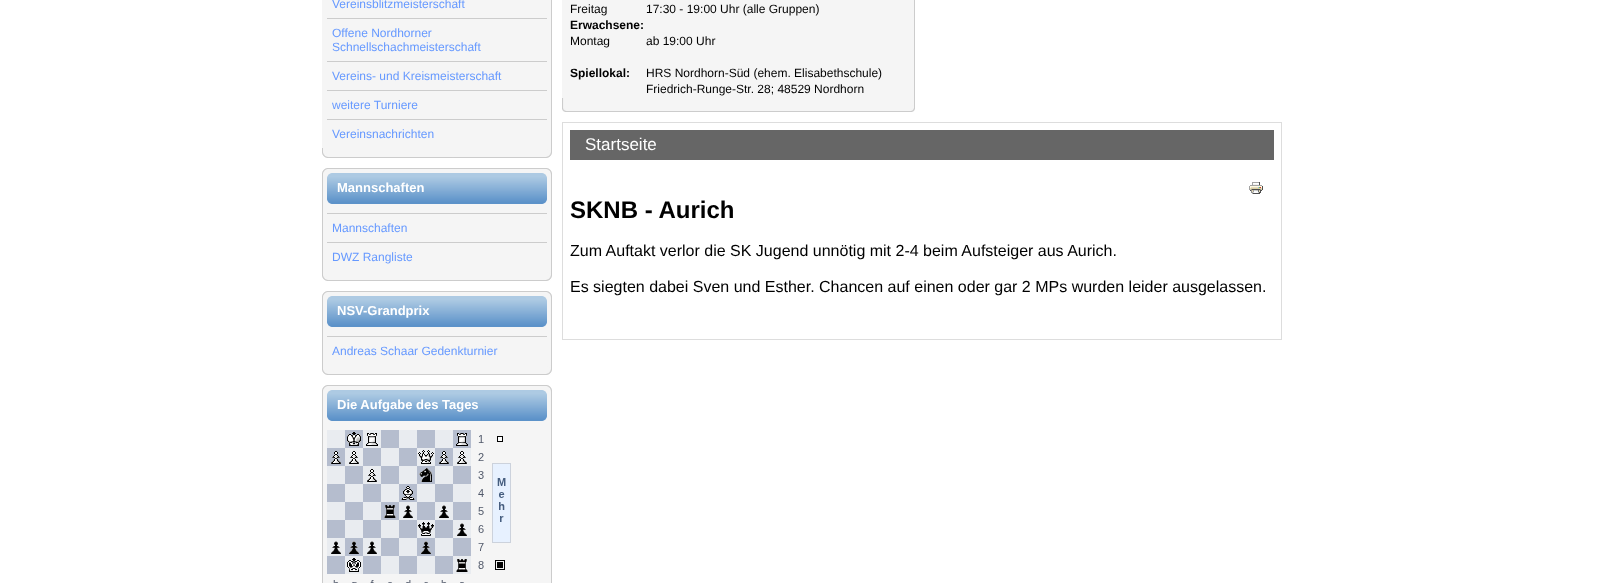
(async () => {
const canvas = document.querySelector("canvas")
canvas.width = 1604
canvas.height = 583
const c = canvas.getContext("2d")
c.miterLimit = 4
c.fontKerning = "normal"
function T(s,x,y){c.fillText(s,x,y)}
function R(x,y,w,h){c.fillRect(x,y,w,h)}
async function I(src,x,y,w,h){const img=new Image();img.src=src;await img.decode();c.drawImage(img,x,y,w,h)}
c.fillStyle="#fff"
R(0,0,1604,583)
c.fillStyle="#f5f5f5"
R(322,0,229,148)
c.fillStyle="#ccc"
R(551,0,1,148)
await I("1.png",322,148,224,10)
await I("2.png",546,148,6,10)
c.font="12px Liberation Sans"
c.fillStyle="#69f"
T("Vereinsblitzmeisterschaft",332,8)
c.fillStyle="#ccc"
R(327,18,220,1)
c.fillStyle="#69f"
T("Offene Nordhorner",332,37)
T("Schnellschachmeisterschaft",332,51)
c.fillStyle="#ccc"
R(327,61,220,1)
c.fillStyle="#69f"
T("Vereins- und Kreismeisterschaft",332,80)
c.fillStyle="#ccc"
R(327,90,220,1)
c.fillStyle="#69f"
T("weitere Turniere",332,109)
c.fillStyle="#ccc"
R(327,119,220,1)
c.fillStyle="#69f"
T("Vereinsnachrichten",332,138)
await I("3.png",322,168,220,103)
await I("4.png",542,168,10,103)
await I("1.png",322,271,224,10)
await I("2.png",546,271,6,10)
c.font="bold 13px Liberation Sans"
c.fillStyle="#fff"
T("Mannschaften",337,192)
c.fillStyle="#ccc"
R(327,213,220,1)
c.font="12px Liberation Sans"
c.fillStyle="#69f"
T("Mannschaften",332,232)
c.fillStyle="#ccc"
R(327,242,220,1)
c.fillStyle="#69f"
T("DWZ Rangliste",332,261)
await I("5.png",322,291,220,74)
await I("6.png",542,291,10,74)
await I("1.png",322,365,224,10)
await I("2.png",546,365,6,10)
c.font="bold 13px Liberation Sans"
c.fillStyle="#fff"
T("NSV-Grandprix",337,315)
c.fillStyle="#ccc"
R(327,336,220,1)
c.font="12px Liberation Sans"
c.fillStyle="#69f"
T("Andreas Schaar Gedenkturnier",332,355)
await I("7.png",322,385,220,198)
await I("8.png",542,385,10,198)
c.font="bold 13px Liberation Sans"
c.fillStyle="#fff"
T("Die Aufgabe des Tages",337,409)
await I("9.png",327,430,184,153)
c.fillStyle="#f5f5f5"
R(562,0,352,98)
c.fillStyle="#ccc"
R(914,0,1,98)
await I("10.png",562,98,349,14)
await I("11.png",911,98,4,14)
c.font="12px Liberation Sans"
c.fillStyle="#000"
T("Freitag",570,13)
T("17:30 - 19:00 Uhr (alle Gruppen)",646,13)
c.font="bold 12px Liberation Sans"
T("Erwachsene:",570,29)
c.font="12px Liberation Sans"
T("Montag",570,45)
T("ab 19:00 Uhr",646,45)
c.font="bold 12px Liberation Sans"
T("Spiellokal:",570,77)
c.font="12px Liberation Sans"
T("HRS Nordhorn-Süd (ehem. Elisabethschule)",646,77)
T("Friedrich-Runge-Str. 28; 48529 Nordhorn",646,93)
c.strokeStyle="#ddd"
c.strokeRect(562.5,122.5,719,217)
c.fillStyle="#666"
R(570,130,704,30)
c.font="17px Liberation Sans"
c.fillStyle="#fff"
T("Startseite",585,150)
await I("12.png",1249,182,14,12)
c.font="bold 24px Liberation Sans"
c.fillStyle="#000"
T("SKNB - Aurich",570,218)
c.font="16px Liberation Sans"
T("Zum Auftakt verlor die SK Jugend unnötig mit 2-4 beim Aufsteiger aus Aurich.",570,256)
T("Es siegten dabei Sven und Esther. Chancen auf einen oder gar 2 MPs wurden leider ausgelassen.",570,292)
})()
